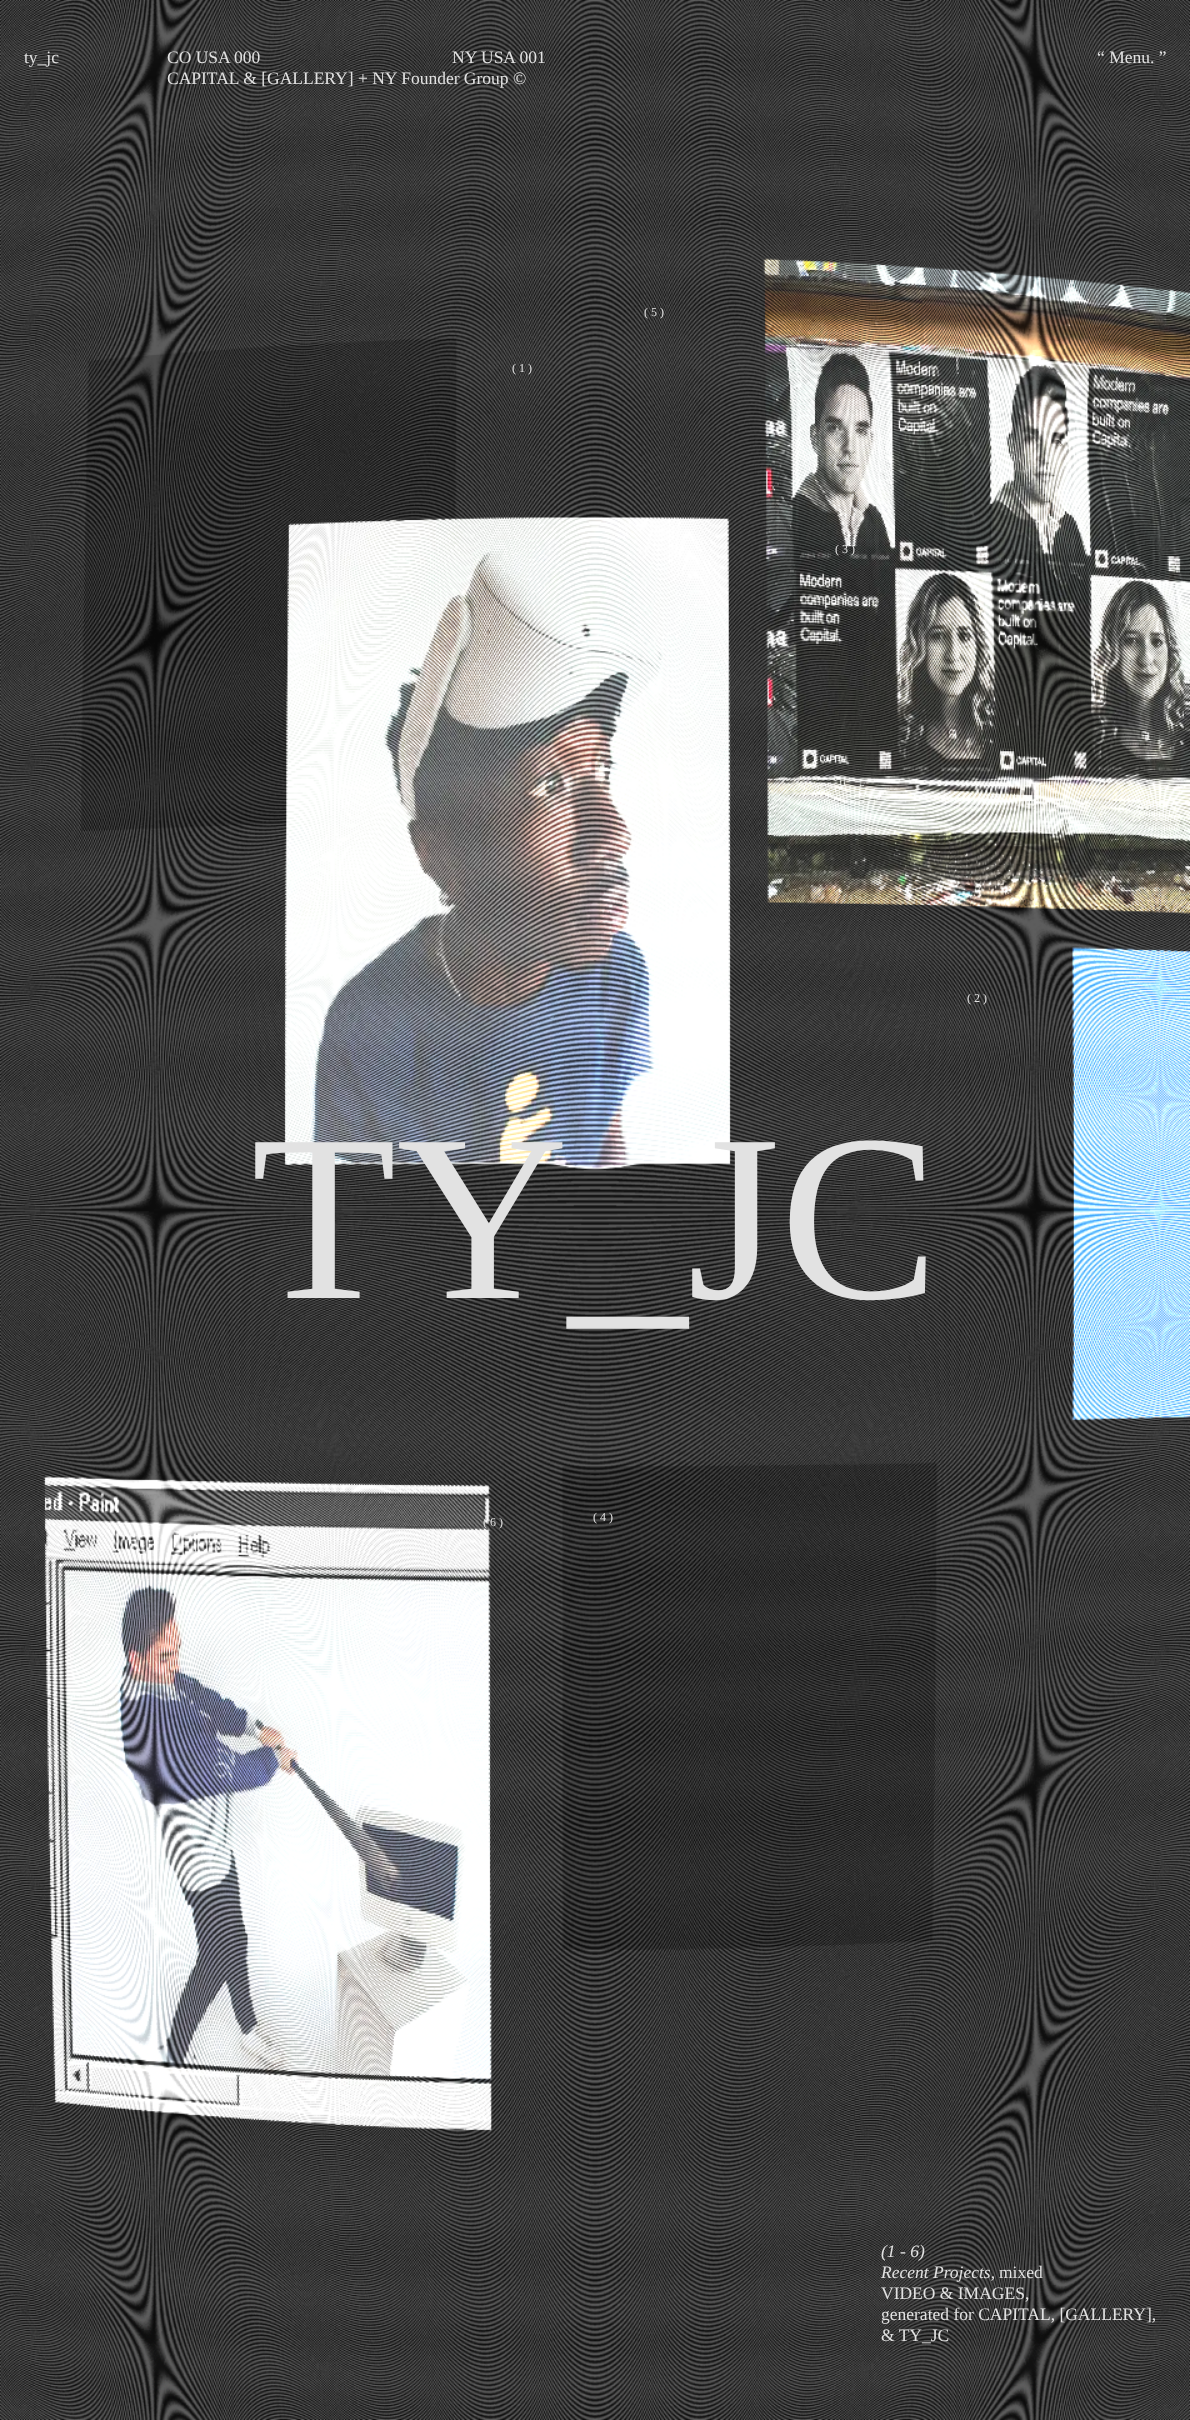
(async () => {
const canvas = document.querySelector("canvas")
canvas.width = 1190
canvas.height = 2420
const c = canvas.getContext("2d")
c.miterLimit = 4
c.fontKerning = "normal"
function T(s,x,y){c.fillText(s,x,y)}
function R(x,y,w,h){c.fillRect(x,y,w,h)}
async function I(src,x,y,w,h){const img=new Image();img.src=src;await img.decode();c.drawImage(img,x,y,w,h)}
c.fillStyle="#fff"
R(0,0,1190,2420)
await I("1.png",0,0,1190,2420)
c.font="17.5px Liberation Serif"
c.fillStyle="#e2e2e2"
T("ty_jc",24,63)
T("CO USA 000",167,63)
T("NY USA 001",452,63)
T("CAPITAL & [GALLERY] + NY Founder Group ©",167,84)
T("“ Menu. ”",1097,63)
c.font="12px Liberation Serif"
T("( 5 )",644,316)
T("( 1 )",512,372)
T("( 3 )",835,553)
T("( 2 )",967,1002)
T("( 6 )",483,1526)
T("( 4 )",593,1521)
c.font="238px Liberation Serif"
T("TY_JC",251,1298)
c.font="italic 17.5px Liberation Serif"
T("(1 - 6)",881,2257)
T("Recent Projects,",881,2278)
c.font="17.5px Liberation Serif"
T("mixed",999,2278)
T("VIDEO & IMAGES,",881,2299)
T("generated for CAPITAL, [GALLERY],",881,2320)
T("& TY_JC",881,2341)
})()
